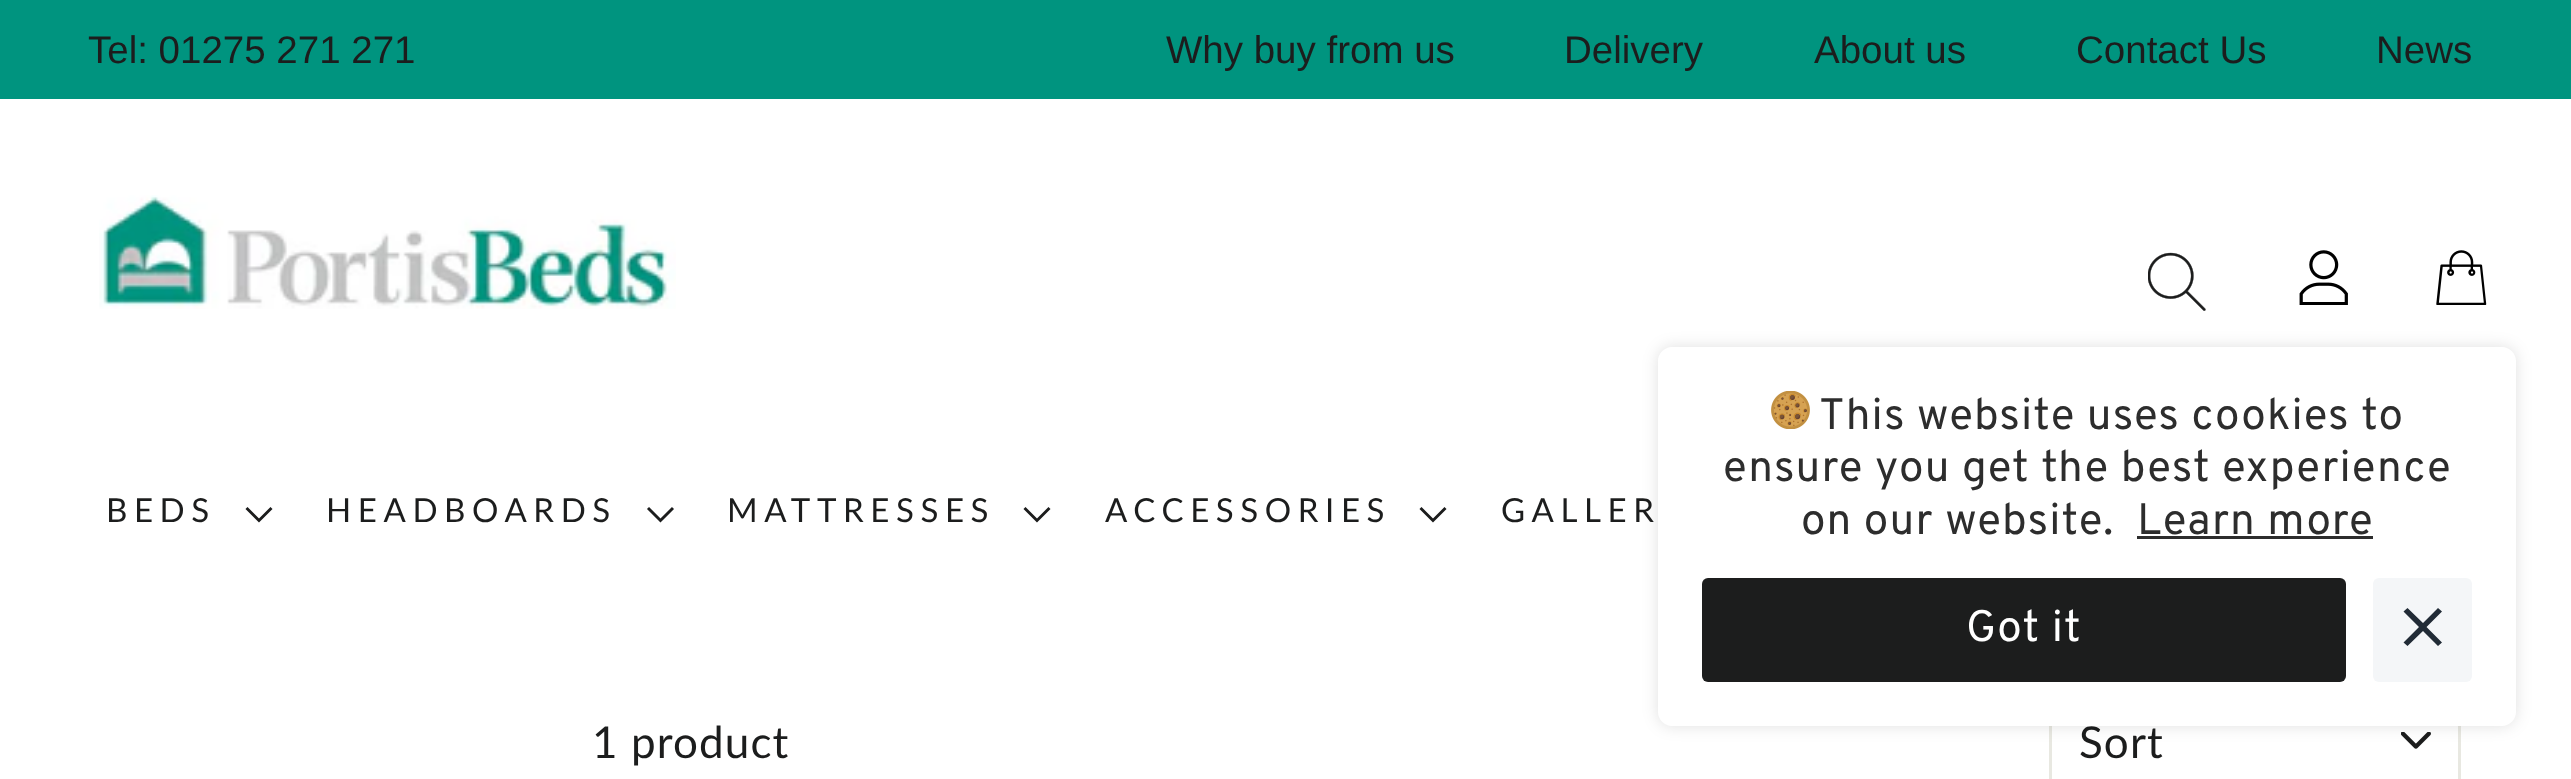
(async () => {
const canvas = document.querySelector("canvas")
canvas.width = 2571
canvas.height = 779
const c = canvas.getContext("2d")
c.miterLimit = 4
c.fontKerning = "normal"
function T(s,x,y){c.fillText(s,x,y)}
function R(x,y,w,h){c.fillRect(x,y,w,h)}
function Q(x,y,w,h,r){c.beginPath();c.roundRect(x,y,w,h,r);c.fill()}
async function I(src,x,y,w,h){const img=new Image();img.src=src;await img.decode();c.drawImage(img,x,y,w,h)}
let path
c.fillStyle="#fff"
R(0,0,2571,779)
c.fillStyle="#00947f"
R(0,0,2571,99)
c.font="38.5px Liberation Sans"
c.fillStyle="#1c1d1d"
T("Tel: 01275 271 271",88,63)
T("Why buy from us",1166,63)
T("Delivery",1564,63)
T("About us",1814,63)
T("Contact Us",2076,63)
T("News",2376,63)
await I("1.png",99,195,577,114)
await I("2.png",2148,252,58,59)
await I("3.png",2299,250,49,55)
await I("4.png",2436,250,51,55)
c.letterSpacing="6.6px"
c.font="33px Lato"
T("BEDS",106,522)
path = new Path2D("M246.5 508l12.5 12.5l12.5-12.5")
c.strokeStyle="#1c1d1d"
c.lineWidth=2.9
c.stroke(path)
T("HEADBOARDS",326,522)
path = new Path2D("M648 508l12.5 12.5l12.5-12.5")
c.stroke(path)
T("MATTRESSES",727,522)
path = new Path2D("M1024.5 508l12.5 12.5l12.5-12.5")
c.stroke(path)
T("ACCESSORIES",1105,522)
path = new Path2D("M1420.5 508l12.5 12.5l12.5-12.5")
c.stroke(path)
T("GALLER",1501,522)
c.letterSpacing="1.1px"
c.font="44px Lato"
T("1 product",592,758)
await I("5.png",2401,732,30,17)
c.strokeStyle="#e8e8e1"
c.lineWidth=3
c.strokeRect(2050.5,680.5,409,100)
T("Sort",2079,758)
c.fillStyle="#fff"
Q(1658,347,858,379,14)
c.save()
path = new Path2D("M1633 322h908v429h-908zm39 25h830c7.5 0 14 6.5 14 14v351c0 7.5-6.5 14-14 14h-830c-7.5 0-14-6.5-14-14v-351c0-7.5 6.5-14 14-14z")
c.clip(path,"evenodd")
c.fillStyle="#0000001f"
c.filter="blur(8px)"
c.beginPath()
c.roundRect(1658,347,858,379,14)
c.fill()
c.filter="none"
c.restore()
await I("6.png",1771,391,39,38)
c.font="44px Overpass"
c.fillStyle="#2d2d2d"
T("This website uses cookies to",1819,429)
T("ensure you get the best experience",1723,481)
T("on our website.",1801,534)
T("Learn more",2137,534)
R(2137,536,236,3)
c.fillStyle="#1c1d1d"
Q(1702,578,644,104,6)
c.fillStyle="#fff"
T("Got it",1966,641)
c.fillStyle="#f4f6f8"
Q(2373,578,99,104,6)
c.fillStyle="#212b36"
path = new Path2D("M2442 611.5l-4-3.5l-15 15l-15.5-15l-4 3.5l15.5 15.5l-15.5 15.5l4 3.5l15.5-15l15 15l4-3.5l-15.5-15.5z")
c.fill(path)
})()
